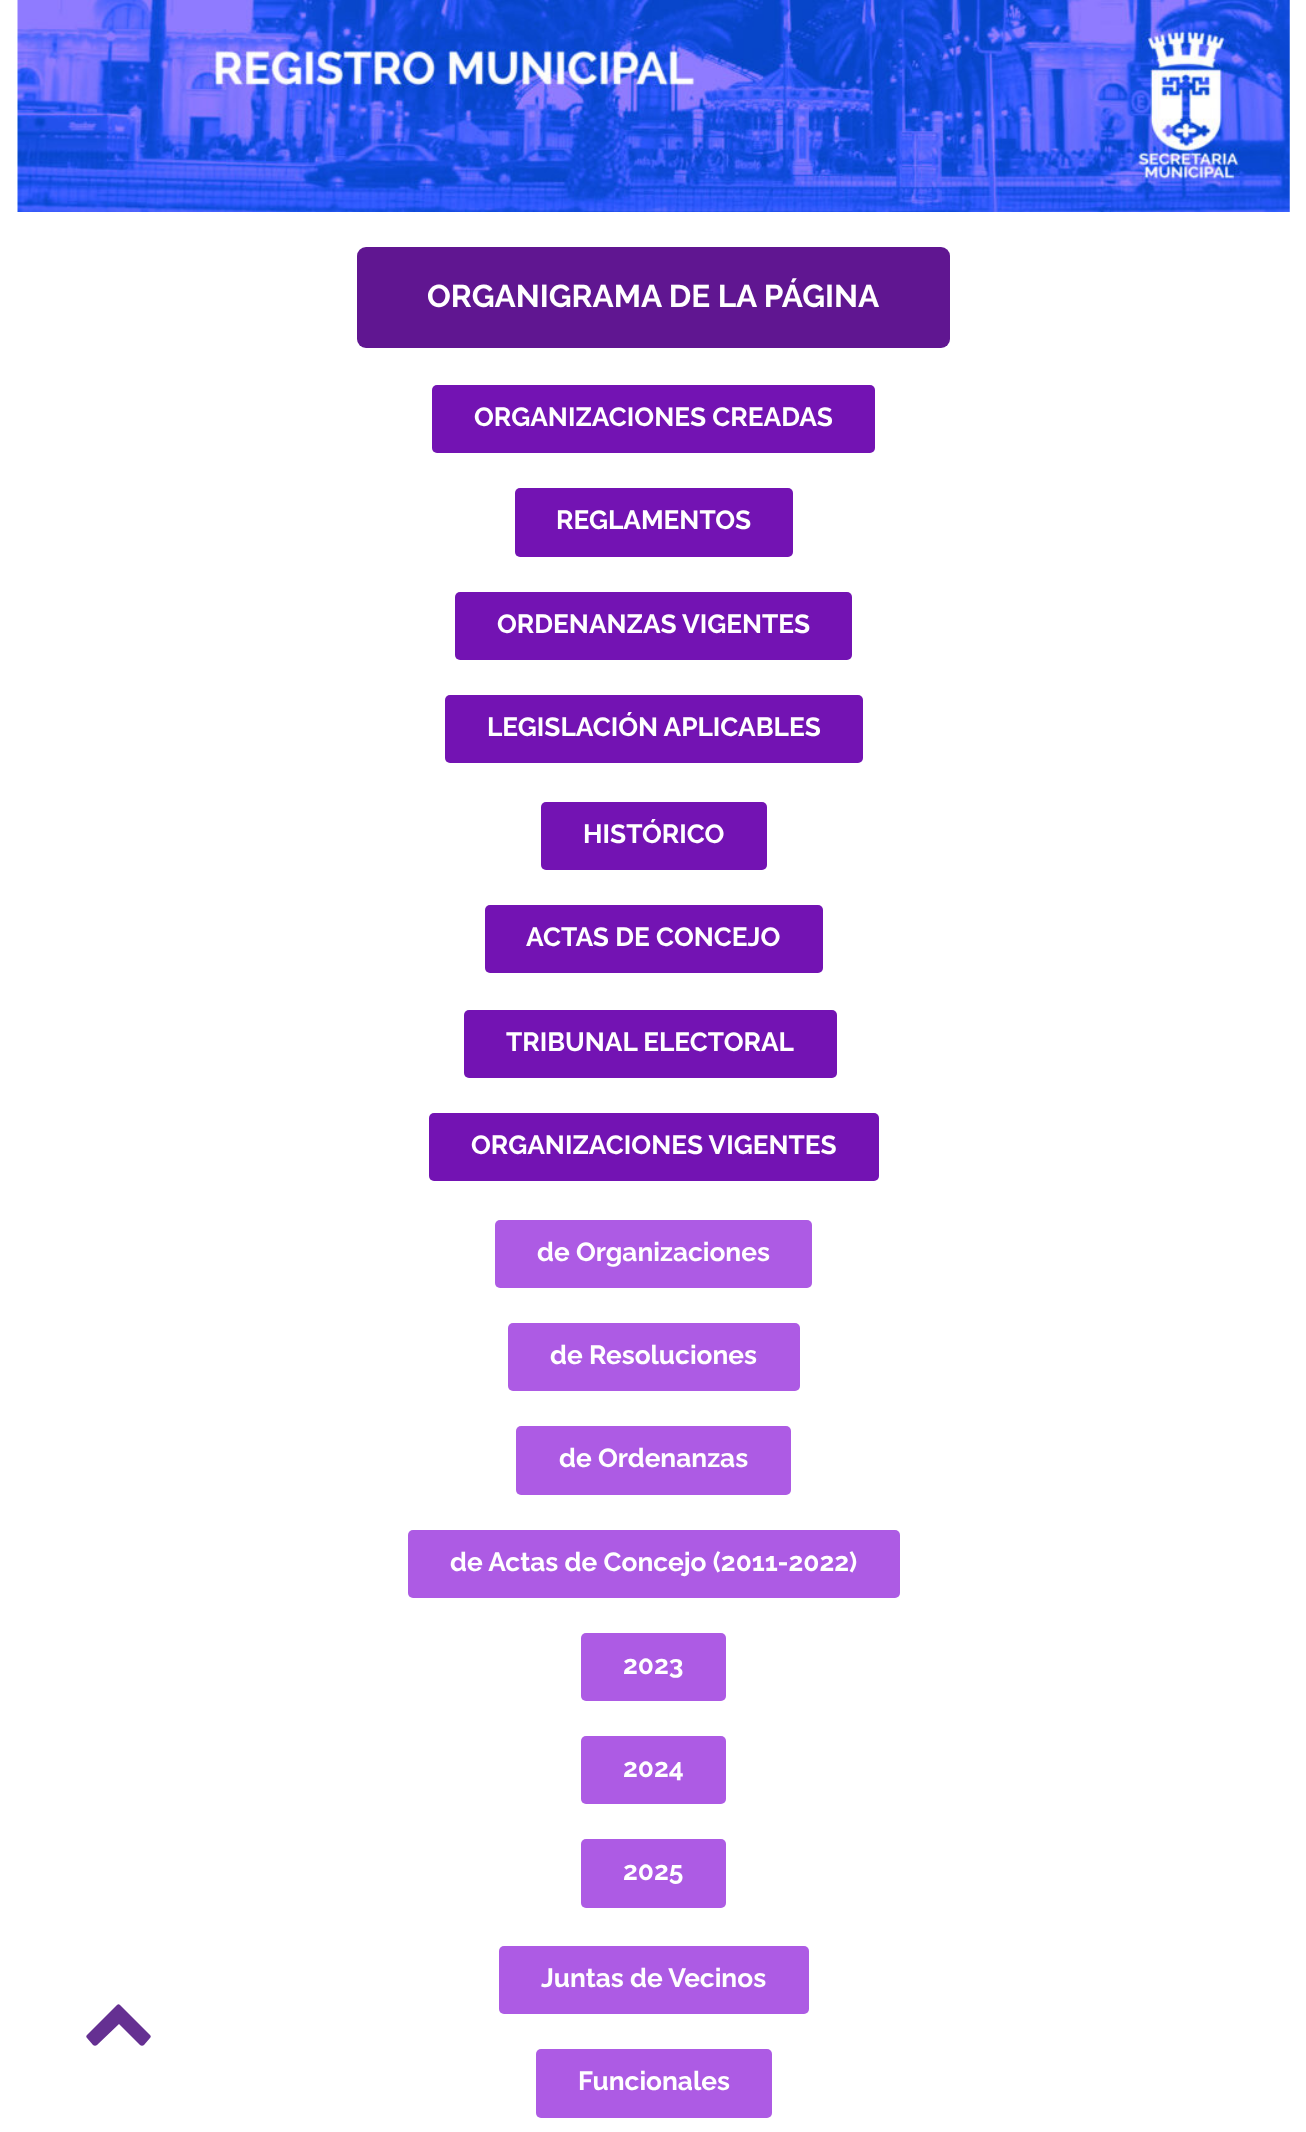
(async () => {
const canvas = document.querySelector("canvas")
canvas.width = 1306
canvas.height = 2132
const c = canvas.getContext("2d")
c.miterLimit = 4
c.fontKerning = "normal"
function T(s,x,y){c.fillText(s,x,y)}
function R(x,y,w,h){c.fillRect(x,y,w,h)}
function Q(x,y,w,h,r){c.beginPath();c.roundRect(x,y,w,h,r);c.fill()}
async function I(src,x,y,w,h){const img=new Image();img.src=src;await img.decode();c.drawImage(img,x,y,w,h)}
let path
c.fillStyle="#fff"
R(0,0,1306,2132)
c.fillStyle="#653092"
path = new Path2D("M150 2038l-6 7c-1 1-3 1-4 0l-21-21l-22 21c-1 1-3 1-4 0l-6-7c-1-1-1-2 0-3l30-30c1-1 2-1 3 0l30 30c1 1 1 2 0 3z")
c.fill(path)
await I("1.png",17,0,1273,212)
c.fillStyle="#601691"
Q(357,247,593,101,9)
c.font="bold 31.5px Raleway"
c.fillStyle="#fff"
T("ORGANIGRAMA DE LA PÁGINA",427,307)
c.fillStyle="#7313b3"
Q(432,385,443,68,5)
c.font="bold 26.25px Raleway"
c.fillStyle="#fff"
T("ORGANIZACIONES CREADAS",474,426)
c.fillStyle="#7313b3"
Q(515,488,278,69,5)
c.fillStyle="#fff"
T("REGLAMENTOS",556,529)
c.fillStyle="#7313b3"
Q(455,592,397,68,5)
c.fillStyle="#fff"
T("ORDENANZAS VIGENTES",497,633)
c.fillStyle="#7313b3"
Q(445,695,418,68,5)
c.fillStyle="#fff"
T("LEGISLACIÓN APLICABLES",487,736)
c.fillStyle="#7313b3"
Q(541,802,226,68,5)
c.fillStyle="#fff"
T("HISTÓRICO",583,843)
c.fillStyle="#7313b3"
Q(485,905,338,68,5)
c.fillStyle="#fff"
T("ACTAS DE CONCEJO",526,946)
c.fillStyle="#7313b3"
Q(464,1010,373,68,5)
c.fillStyle="#fff"
T("TRIBUNAL ELECTORAL",506,1051)
c.fillStyle="#7313b3"
Q(429,1113,450,68,5)
c.fillStyle="#fff"
T("ORGANIZACIONES VIGENTES",471,1154)
c.fillStyle="#ad5be4"
Q(495,1220,317,68,5)
c.fillStyle="#fff"
T("de Organizaciones",537,1261)
c.fillStyle="#ad5be4"
Q(508,1323,292,68,5)
c.fillStyle="#fff"
T("de Resoluciones",550,1364)
c.fillStyle="#ad5be4"
Q(516,1426,275,69,5)
c.fillStyle="#fff"
T("de Ordenanzas",559,1467)
c.fillStyle="#ad5be4"
Q(408,1530,492,68,5)
c.fillStyle="#fff"
T("de Actas de Concejo (2011-2022)",450,1571)
c.fillStyle="#ad5be4"
Q(581,1633,145,68,5)
c.fillStyle="#fff"
T("2023",623,1674)
c.fillStyle="#ad5be4"
Q(581,1736,145,68,5)
c.fillStyle="#fff"
T("2024",623,1777)
c.fillStyle="#ad5be4"
Q(581,1839,145,69,5)
c.fillStyle="#fff"
T("2025",623,1880)
c.fillStyle="#ad5be4"
Q(499,1946,310,68,5)
c.fillStyle="#fff"
T("Juntas de Vecinos",541,1987)
c.fillStyle="#ad5be4"
Q(536,2049,236,69,5)
c.fillStyle="#fff"
T("Funcionales",578,2090)
})()
